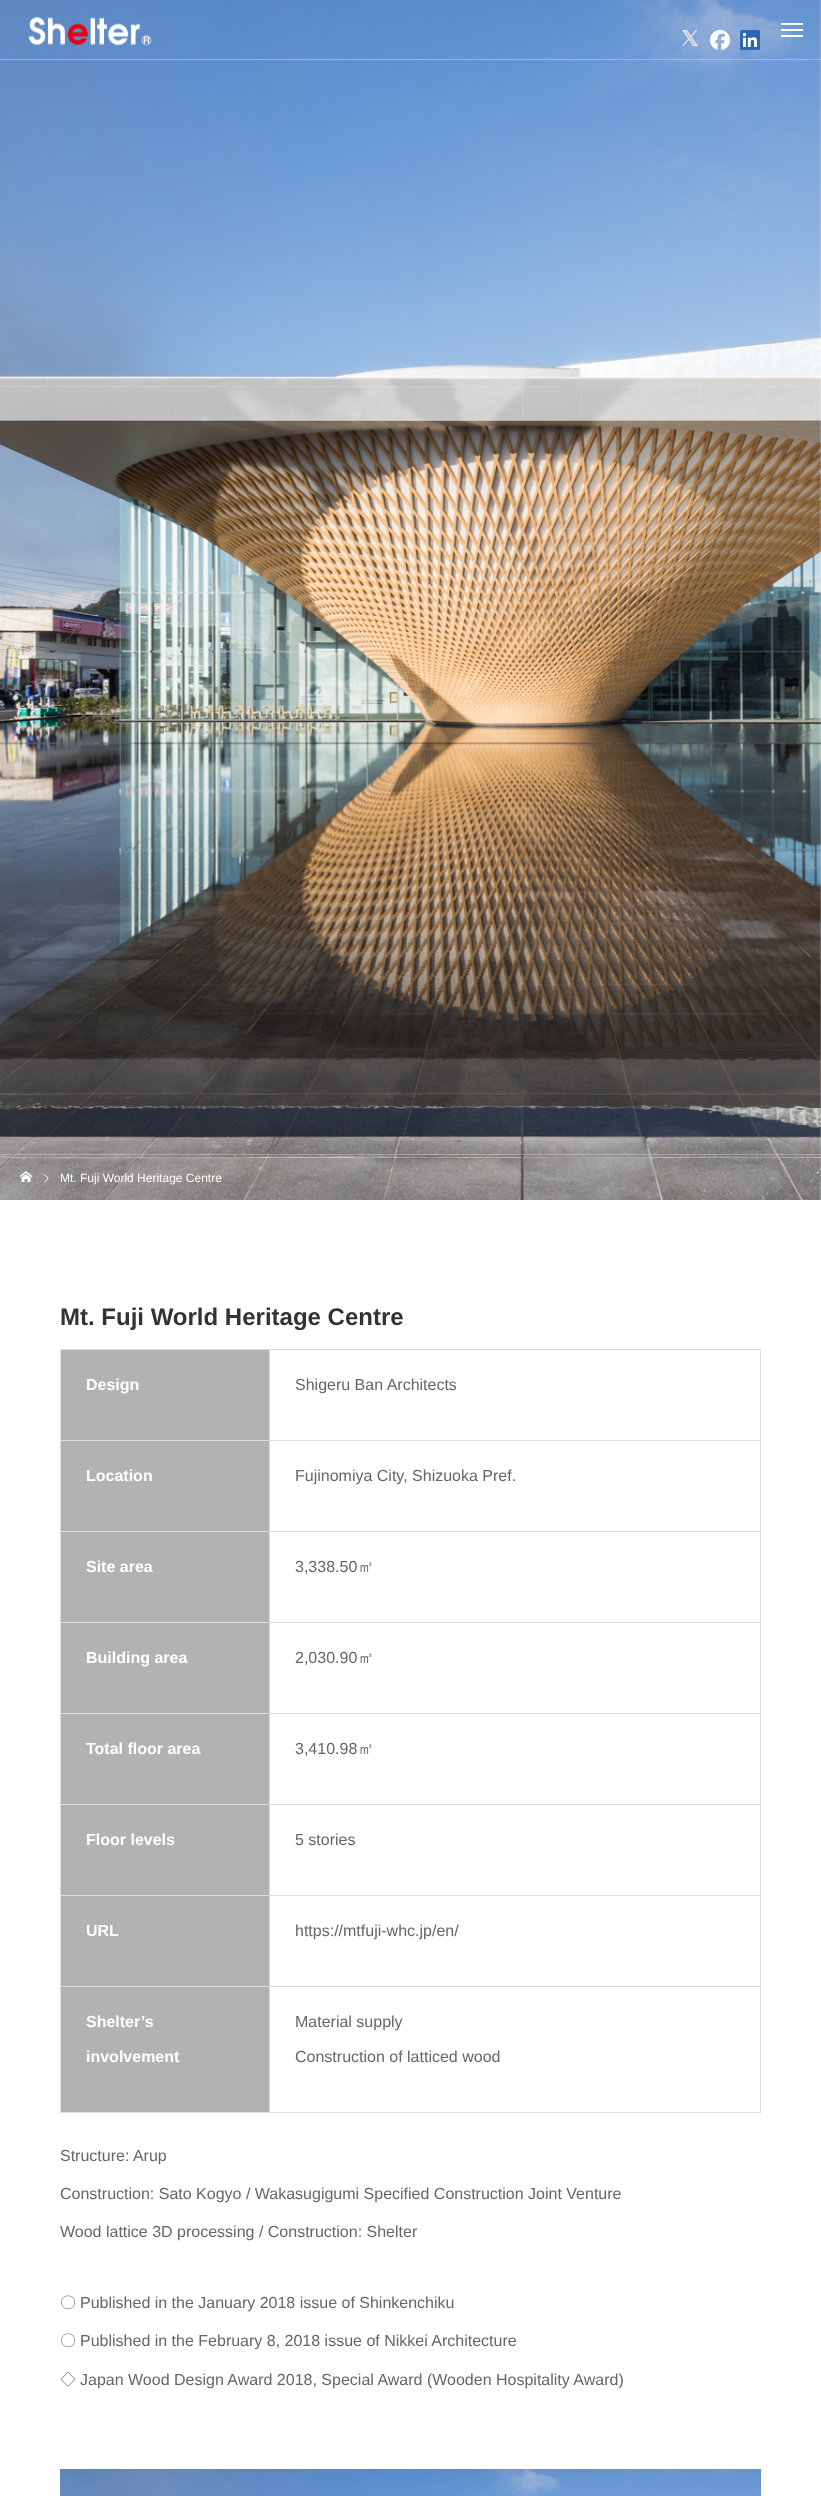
(async () => {
const canvas = document.querySelector("canvas")
canvas.width = 821
canvas.height = 2496
const c = canvas.getContext("2d")
c.miterLimit = 4
c.fontKerning = "normal"
function T(s,x,y){c.fillText(s,x,y)}
function R(x,y,w,h){c.fillRect(x,y,w,h)}
async function I(src,x,y,w,h){const img=new Image();img.src=src;await img.decode();c.drawImage(img,x,y,w,h)}
c.fillStyle="#fff"
R(0,0,821,2496)
await I("5.png",0,0,821,1200)
c.fillStyle="#ffffff4d"
R(0,59,821,1)
await I("1.png",28,16,124,30)
await I("2.png",682,30,16,16)
await I("3.png",710,30,20,20)
await I("4.png",740,30,20,20)
c.fillStyle="#fff"
R(781,23,22,2)
R(781,29,22,2)
R(781,35,22,2)
c.fillStyle="#ffffff4d"
R(0,1154,821,1)
await I("6.png",20,1171,12,11)
await I("7.png",44,1174,5,9)
c.font="12px Liberation Sans"
c.fillStyle="#fff"
T("Mt. Fuji World Heritage Centre",60,1182)
c.font="bold 24px Liberation Sans"
c.fillStyle="#333"
T("Mt. Fuji World Heritage Centre",60,1325)
c.fillStyle="#b2b2b2"
R(61,1350,208,90)
c.fillStyle="#ddd"
R(269,1349,492,1)
R(269,1440,492,1)
R(269,1531,492,1)
R(269,1622,492,1)
R(269,1713,492,1)
R(269,1804,492,1)
R(269,1895,492,1)
R(269,1986,492,1)
R(760,1986,1,127)
R(269,2112,492,1)
R(269,1986,1,127)
R(60,1986,210,1)
R(269,1895,1,92)
R(60,1895,210,1)
R(269,1804,1,92)
R(60,1804,210,1)
R(269,1713,1,92)
R(60,1713,210,1)
R(269,1622,1,92)
R(60,1622,210,1)
R(269,1531,1,92)
R(60,1531,210,1)
R(269,1440,1,92)
R(60,1440,210,1)
R(269,1349,1,92)
R(60,1349,210,1)
R(60,2112,210,1)
R(60,1986,1,127)
R(60,1895,1,92)
R(60,1804,1,92)
R(60,1713,1,92)
R(60,1622,1,92)
R(60,1531,1,92)
R(60,1440,1,92)
R(60,1349,1,92)
c.font="bold 16px Liberation Sans"
c.fillStyle="#fff"
T("Design",86,1390)
c.fillStyle="#ddd"
R(760,1895,1,92)
R(760,1804,1,92)
R(760,1713,1,92)
R(760,1622,1,92)
R(760,1531,1,92)
R(760,1440,1,92)
R(760,1349,1,92)
c.font="16px Liberation Sans"
c.fillStyle="#666"
T("Shigeru Ban Architects",295,1390)
c.fillStyle="#b2b2b2"
R(61,1441,208,90)
c.font="bold 16px Liberation Sans"
c.fillStyle="#fff"
T("Location",86,1481)
c.font="16px Liberation Sans"
c.fillStyle="#666"
T("Fujinomiya City, Shizuoka Pref.",295,1481)
c.fillStyle="#b2b2b2"
R(61,1532,208,90)
c.font="bold 16px Liberation Sans"
c.fillStyle="#fff"
T("Site area",86,1572)
c.font="16px Liberation Sans"
c.fillStyle="#666"
T("3,338.50",295,1572)
c.font="500 16px WenQuanYi Zen Hei"
T("㎡",358,1572)
c.fillStyle="#b2b2b2"
R(61,1623,208,90)
c.font="bold 16px Liberation Sans"
c.fillStyle="#fff"
T("Building area",86,1663)
c.font="16px Liberation Sans"
c.fillStyle="#666"
T("2,030.90",295,1663)
c.font="500 16px WenQuanYi Zen Hei"
T("㎡",358,1663)
c.fillStyle="#b2b2b2"
R(61,1714,208,90)
c.font="bold 16px Liberation Sans"
c.fillStyle="#fff"
T("Total floor area",86,1754)
c.font="16px Liberation Sans"
c.fillStyle="#666"
T("3,410.98",295,1754)
c.font="500 16px WenQuanYi Zen Hei"
T("㎡",358,1754)
c.fillStyle="#b2b2b2"
R(61,1805,208,90)
c.font="bold 16px Liberation Sans"
c.fillStyle="#fff"
T("Floor levels",86,1845)
c.font="16px Liberation Sans"
c.fillStyle="#666"
T("5 stories",295,1845)
c.fillStyle="#b2b2b2"
R(61,1896,208,90)
c.font="bold 16px Liberation Sans"
c.fillStyle="#fff"
T("URL",86,1936)
c.font="16px Liberation Sans"
c.fillStyle="#666"
T("https://mtfuji-whc.jp/en/",295,1936)
c.fillStyle="#b2b2b2"
R(61,1987,208,125)
c.font="bold 16px Liberation Sans"
c.fillStyle="#fff"
T("Shelter’s",86,2027)
T("involvement",86,2062)
c.font="16px Liberation Sans"
c.fillStyle="#666"
T("Material supply",295,2027)
T("Construction of latticed wood",295,2062)
T("Structure: Arup",60,2161)
T("Construction: Sato Kogyo / Wakasugigumi Specified Construction Joint Venture",60,2199)
T("Wood lattice 3D processing / Construction: Shelter",60,2237)
c.font="500 16px WenQuanYi Zen Hei"
T("〇",60,2308)
c.font="16px Liberation Sans"
T("Published in the January 2018 issue of Shinkenchiku",80,2308)
c.font="500 16px WenQuanYi Zen Hei"
T("〇",60,2346)
c.font="16px Liberation Sans"
T("Published in the February 8, 2018 issue of Nikkei Architecture",80,2346)
c.font="500 16px WenQuanYi Zen Hei"
T("◇",60,2385)
c.font="16px Liberation Sans"
T("Japan Wood Design Award 2018, Special Award (Wooden Hospitality Award)",80,2385)
await I("8.png",60,2469,701,27)
})()
